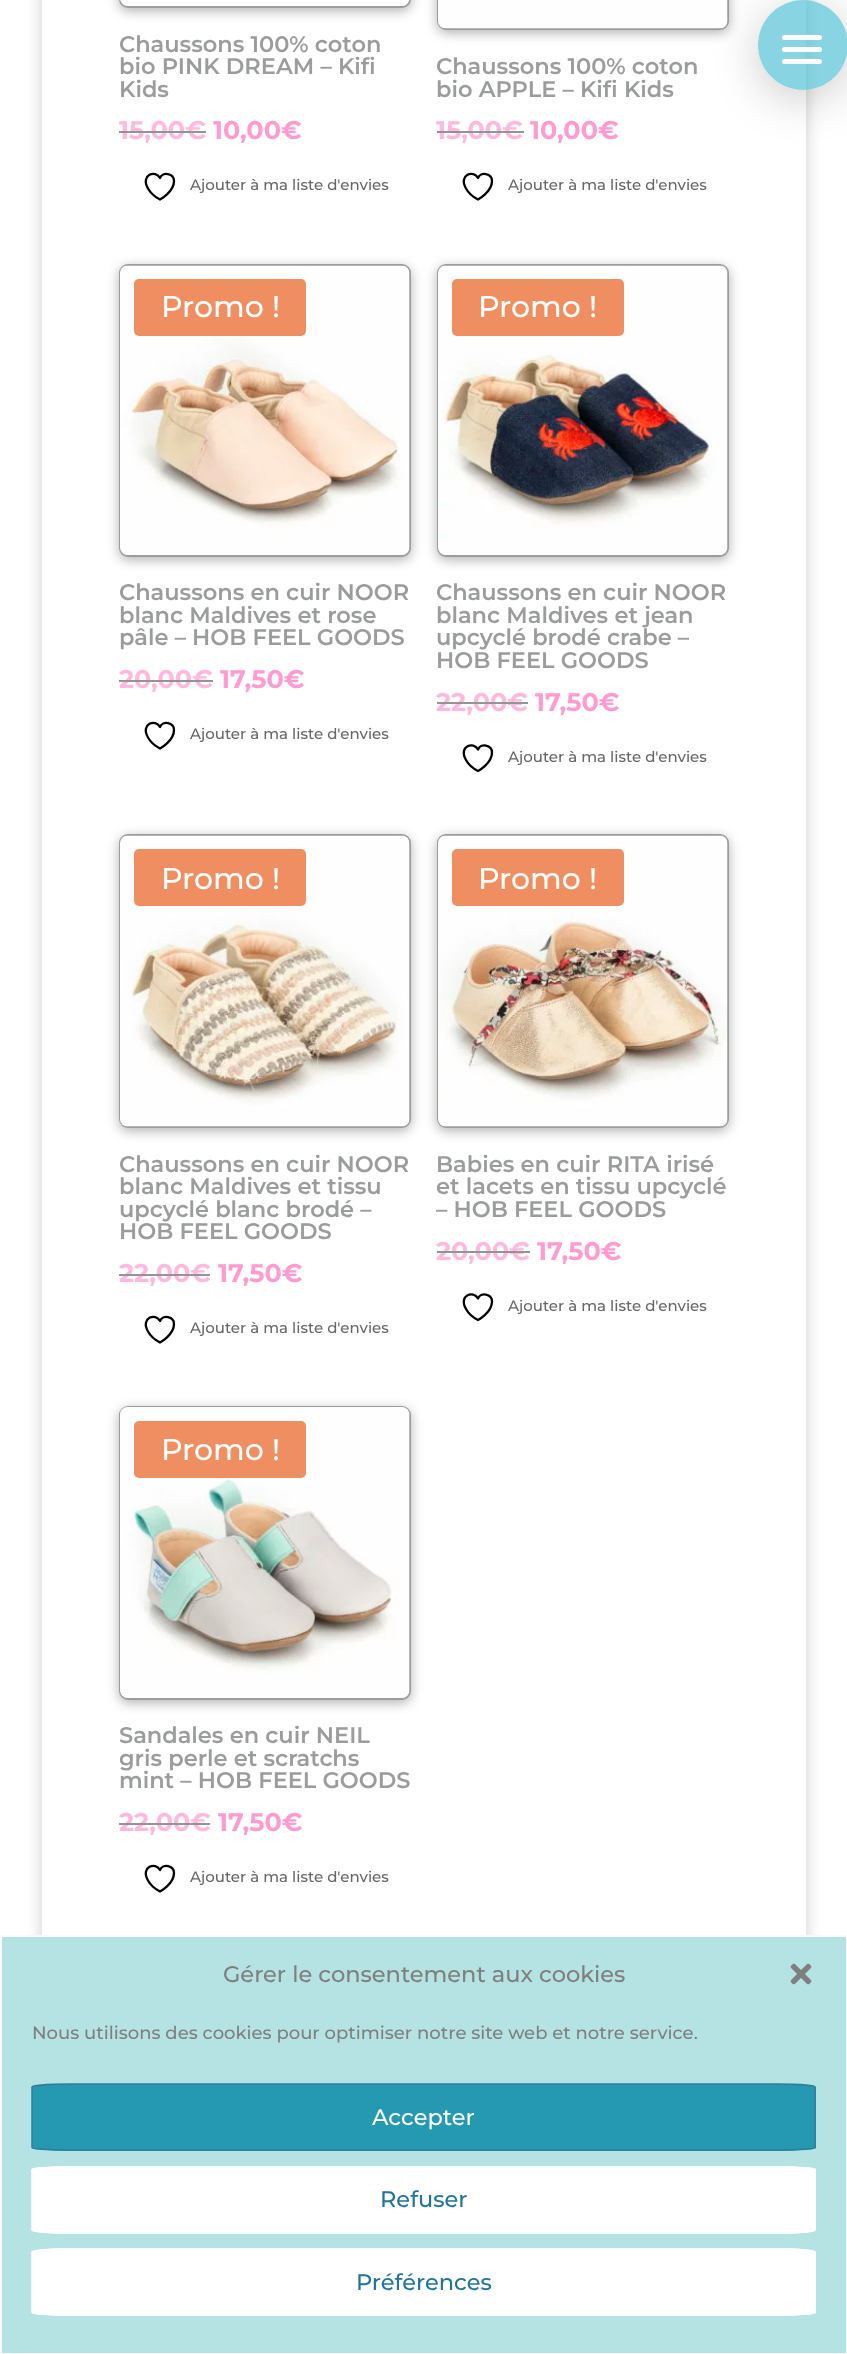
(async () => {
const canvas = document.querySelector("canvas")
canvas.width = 847
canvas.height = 2354
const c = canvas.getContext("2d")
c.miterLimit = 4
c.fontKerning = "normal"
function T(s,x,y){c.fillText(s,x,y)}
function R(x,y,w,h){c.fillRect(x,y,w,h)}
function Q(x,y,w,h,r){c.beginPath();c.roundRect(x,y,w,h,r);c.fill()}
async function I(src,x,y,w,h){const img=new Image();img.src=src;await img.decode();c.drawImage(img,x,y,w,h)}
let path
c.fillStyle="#fff"
R(0,0,847,2354)
c.fillStyle="#00000033"
c.filter="blur(7.5px)"
c.beginPath()
c.rect(42,-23,764,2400)
c.fill()
c.filter="none"
c.fillStyle="#fff"
R(42,0,764,1935)
c.fillStyle="#0000004d"
c.filter="blur(6px)"
c.beginPath()
c.roundRect(119,-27,292,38,9)
c.fill()
c.filter="none"
c.beginPath()
c.roundRect(120,-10,290,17,8)
c.strokeStyle="#9b9c9c"
c.lineWidth=2
c.stroke()
await I("1.png",120,0,290,6)
c.font="100 22.5px Montserrat"
c.fillStyle="#9b9c9c"
T("Chaussons 100% coton",119,52)
T("bio PINK DREAM – Kifi",119,74)
T("Kids",119,97)
c.font="100 25.5px 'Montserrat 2'"
c.fillStyle="#ffb9de"
T("15,00€",119,139)
c.fillStyle="#949494"
R(119,131,87,2)
c.fillStyle="#ff9bd0"
T("10,00€",213,139)
path = new Path2D("M174 181c0-8-11.5-9.5-14-3c-4-8.5-20-3.5-12 10.5c2.5 4.5 7 8.5 12 11c0 0 14-7.5 14-18.5z")
c.strokeStyle="#000"
c.lineWidth=2.3
c.lineCap="round"
c.lineJoin="round"
c.stroke(path)
c.font="100 15px 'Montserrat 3'"
c.fillStyle="#666"
T("Ajouter à ma liste d'envies",190,190)
c.fillStyle="#0000004d"
c.filter="blur(6px)"
c.beginPath()
c.roundRect(437,-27,292,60,9)
c.fill()
c.filter="none"
c.beginPath()
c.roundRect(438,-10,290,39,8)
c.strokeStyle="#9b9c9c"
c.lineWidth=2
c.lineJoin="miter"
c.stroke()
await I("2.png",438,0,290,29)
c.font="100 22.5px Montserrat"
c.fillStyle="#9b9c9c"
T("Chaussons 100% coton",436,74)
T("bio APPLE – Kifi Kids",436,97)
c.font="100 25.5px 'Montserrat 2'"
c.fillStyle="#ffb9de"
T("15,00",436,139)
c.fillStyle="#949494"
R(437,131,66,2)
c.fillStyle="#ffb9de"
T("€",502,139)
c.fillStyle="#949494"
R(503,131,21,2)
c.fillStyle="#ff9bd0"
T("10,00€",530,139)
path = new Path2D("M492 181c0-8-11.5-9.5-14-3c-4-8.5-20-3.5-12 10.5c2.5 4.5 7 8.5 12 11c0 0 14-7.5 14-18.5z")
c.strokeStyle="#000"
c.lineWidth=2.3
c.lineJoin="round"
c.stroke(path)
c.font="100 15px 'Montserrat 3'"
c.fillStyle="#666"
T("Ajouter à ma liste d'envies",508,190)
c.fillStyle="#0000004d"
c.filter="blur(6px)"
c.beginPath()
c.roundRect(119,267,292,293,9)
c.fill()
c.filter="none"
c.beginPath()
c.roundRect(120,265,290,291,8)
c.strokeStyle="#9b9c9c"
c.lineWidth=2
c.lineJoin="miter"
c.stroke()
await I("3.png",120,265,290,290)
c.fillStyle="#ef8f61"
Q(134,279,172,57,5)
c.font="100 30px 'Montserrat 3'"
c.fillStyle="#fff"
T("Promo !",161,317)
c.font="100 22.5px Montserrat"
c.fillStyle="#9b9c9c"
T("Chaussons en cuir NOOR",119,600)
T("blanc Maldives et rose",119,623)
T("pâle – HOB FEEL GOODS",119,645)
c.font="100 25.5px 'Montserrat 2'"
c.fillStyle="#ffb9de"
T("20,00€",119,688)
c.fillStyle="#949494"
R(119,680,94,2)
c.fillStyle="#ff9bd0"
T("17,50€",220,688)
path = new Path2D("M174 730c0-8-11.5-9.5-14-3c-4-8.5-20-3.5-12 10.5c2.5 4.5 7 8.5 12 11c0 0 14-7.5 14-18.5z")
c.strokeStyle="#000"
c.lineWidth=2.3
c.lineJoin="round"
c.stroke(path)
c.font="100 15px 'Montserrat 3'"
c.fillStyle="#666"
T("Ajouter à ma liste d'envies",190,739)
c.fillStyle="#0000004d"
c.filter="blur(6px)"
c.beginPath()
c.roundRect(437,267,292,293,9)
c.fill()
c.filter="none"
c.beginPath()
c.roundRect(438,265,290,291,8)
c.strokeStyle="#9b9c9c"
c.lineWidth=2
c.lineJoin="miter"
c.stroke()
await I("4.png",438,265,290,290)
c.fillStyle="#ef8f61"
Q(452,279,172,57,5)
c.font="100 30px 'Montserrat 3'"
c.fillStyle="#fff"
T("Promo !",478,317)
c.font="100 22.5px Montserrat"
c.fillStyle="#9b9c9c"
T("Chaussons en cuir NOOR",436,600)
T("blanc Maldives et jean",436,623)
T("upcyclé brodé crabe –",436,645)
T("HOB FEEL GOODS",436,668)
c.font="100 25.5px 'Montserrat 2'"
c.fillStyle="#ffb9de"
T("22,00€",436,711)
c.fillStyle="#949494"
R(437,702,91,2)
c.fillStyle="#ff9bd0"
T("17,50€",535,711)
path = new Path2D("M492 752.5c0-8-11.5-9.5-14-3c-4-8.5-20-3.5-12 10.5c2.5 4.5 7 8.5 12 11c0 0 14-7.5 14-18.5z")
c.strokeStyle="#000"
c.lineWidth=2.3
c.lineJoin="round"
c.stroke(path)
c.font="100 15px 'Montserrat 3'"
c.fillStyle="#666"
T("Ajouter à ma liste d'envies",508,762)
c.fillStyle="#0000004d"
c.filter="blur(6px)"
c.beginPath()
c.roundRect(119,837,292,294,9)
c.fill()
c.filter="none"
c.beginPath()
c.roundRect(120,835,290,292,8)
c.strokeStyle="#9b9c9c"
c.lineWidth=2
c.lineJoin="miter"
c.stroke()
await I("5.png",120,835,290,292)
c.fillStyle="#ef8f61"
Q(134,849,172,57,5)
c.font="100 30px 'Montserrat 3'"
c.fillStyle="#fff"
T("Promo !",161,889)
c.font="100 22.5px Montserrat"
c.fillStyle="#9b9c9c"
T("Chaussons en cuir NOOR",119,1172)
T("blanc Maldives et tissu",119,1194)
T("upcyclé blanc brodé –",119,1217)
T("HOB FEEL GOODS",119,1239)
c.font="100 25.5px 'Montserrat 2'"
c.fillStyle="#ffb9de"
T("22,00",119,1282)
c.fillStyle="#949494"
R(119,1274,72,2)
c.fillStyle="#ffb9de"
T("€",190,1282)
c.fillStyle="#949494"
R(191,1274,19,2)
c.fillStyle="#ff9bd0"
T("17,50€",218,1282)
path = new Path2D("M174 1324c0-8-11.5-9.5-14-3c-4-8.5-20-3.5-12 10.5c2.5 4.5 7 8.5 12 11c0 0 14-7.5 14-18.5z")
c.strokeStyle="#000"
c.lineWidth=2.3
c.lineJoin="round"
c.stroke(path)
c.font="100 15px 'Montserrat 3'"
c.fillStyle="#666"
T("Ajouter à ma liste d'envies",190,1333)
c.fillStyle="#0000004d"
c.filter="blur(6px)"
c.beginPath()
c.roundRect(437,837,292,294,9)
c.fill()
c.filter="none"
c.beginPath()
c.roundRect(438,835,290,292,8)
c.strokeStyle="#9b9c9c"
c.lineWidth=2
c.lineJoin="miter"
c.stroke()
await I("6.png",438,835,290,292)
c.fillStyle="#ef8f61"
Q(452,849,172,57,5)
c.font="100 30px 'Montserrat 3'"
c.fillStyle="#fff"
T("Promo !",478,889)
c.font="100 22.5px Montserrat"
c.fillStyle="#9b9c9c"
T("Babies en cuir RITA irisé",436,1172)
T("et lacets en tissu upcyclé",436,1194)
T("– HOB FEEL GOODS",436,1217)
c.font="100 25.5px 'Montserrat 2'"
c.fillStyle="#ffb9de"
T("20,00€",436,1260)
c.fillStyle="#949494"
R(437,1251,93,2)
c.fillStyle="#ff9bd0"
T("17,50€",537,1260)
path = new Path2D("M492 1301.5c0-8-11.5-9.5-14-3c-4-8.5-20-3.5-12 10.5c2.5 4.5 7 8.5 12 11c0 0 14-7.5 14-18.5z")
c.strokeStyle="#000"
c.lineWidth=2.3
c.lineJoin="round"
c.stroke(path)
c.font="100 15px 'Montserrat 3'"
c.fillStyle="#666"
T("Ajouter à ma liste d'envies",508,1311)
c.fillStyle="#0000004d"
c.filter="blur(6px)"
c.beginPath()
c.roundRect(119,1409,292,294,9)
c.fill()
c.filter="none"
c.beginPath()
c.roundRect(120,1407,290,292,8)
c.strokeStyle="#9b9c9c"
c.lineWidth=2
c.lineJoin="miter"
c.stroke()
await I("7.png",120,1407,290,291)
c.fillStyle="#ef8f61"
Q(134,1421,172,57,5)
c.font="100 30px 'Montserrat 3'"
c.fillStyle="#fff"
T("Promo !",161,1460)
c.font="100 22.5px Montserrat"
c.fillStyle="#9b9c9c"
T("Sandales en cuir NEIL",119,1743)
T("gris perle et scratchs",119,1766)
T("mint – HOB FEEL GOODS",119,1788)
c.font="100 25.5px 'Montserrat 2'"
c.fillStyle="#ffb9de"
T("22,00",119,1831)
c.fillStyle="#949494"
R(119,1823,72,2)
c.fillStyle="#ffb9de"
T("€",190,1831)
c.fillStyle="#949494"
R(191,1823,19,2)
c.fillStyle="#ff9bd0"
T("17,50€",218,1831)
path = new Path2D("M174 1873c0-8-11.5-9.5-14-3c-4-8.5-20-3.5-12 10.5c2.5 4.5 7 8.5 12 11c0 0 14-7.5 14-18.5z")
c.strokeStyle="#000"
c.lineWidth=2.3
c.lineJoin="round"
c.stroke(path)
c.font="100 15px 'Montserrat 3'"
c.fillStyle="#666"
T("Ajouter à ma liste d'envies",190,1882)
c.save()
path = new Path2D("M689 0h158v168h-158zm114 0c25 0 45 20 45 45c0 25-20 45-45 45c-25 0-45-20-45-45c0-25 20-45 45-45z")
c.clip(path,"evenodd")
c.fillStyle="#00000033"
c.filter="blur(22.5px)"
c.beginPath()
c.roundRect(758,9,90,90,45)
c.fill()
c.filter="none"
c.restore()
c.fillStyle="#4fbfd6ad"
c.beginPath()
c.arc(803,45,45,0,7)
c.fill()
c.fillStyle="#fff"
Q(782,47,40,5,2.5)
Q(782,35,40,5,2.5)
Q(782,59,40,5,2.5)
c.fillStyle="#b5e2e2"
c.beginPath()
c.rect(1,1936,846,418)
c.fill()
c.strokeStyle="#f9f9f9"
c.lineWidth=2
c.lineJoin="miter"
c.stroke()
c.font="100 22.5px 'Montserrat 3'"
c.fillStyle="#7f7f7f"
T("Gérer le consentement aux cookies",223,1982)
await I("8.png",790,1963,22,22)
c.font="100 18px 'Montserrat 3'"
T("Nous utilisons des cookies pour optimiser notre site web et notre service.",32,2039)
c.fillStyle="#2598b2"
path = new Path2D("M71 2084h706c21 0 39 1 39 3v61c0 1-18 3-39 3h-706c-22 0-39-2-39-3v-61c0-2 17-3 39-3z")
c.fill(path)
path = new Path2D("M70.5 2084h706.5c21 0 38 1.5 38 3v60.5c0 1.5-17 2.5-38 2.5h-706.5c-21 0-38.5-1-38.5-2.5v-60.5c0-1.5 17.5-3 38.5-3z")
c.strokeStyle="#347b9b"
c.lineWidth=1.5
c.lineCap="butt"
c.stroke(path)
c.font="100 22.5px 'Montserrat 3'"
c.fillStyle="#fff"
T("Accepter",372,2125)
path = new Path2D("M71 2166h706c21 0 39 2 39 3v61c0 2-18 4-39 4h-706c-22 0-39-2-39-4v-61c0-1 17-3 39-3z")
c.fill(path)
path = new Path2D("M70.5 2167h706.5c21 0 38 1 38 2.5v60.5c0 1.5-17 3-38 3h-706.5c-21 0-38.5-1.5-38.5-3v-60.5c0-1.5 17.5-2.5 38.5-2.5z")
c.strokeStyle="#fff"
c.stroke(path)
c.fillStyle="#21759b"
T("Refuser",380,2207)
c.fillStyle="#fff"
path = new Path2D("M71 2248h706c21 0 39 2 39 4v61c0 1-18 3-39 3h-706c-22 0-39-2-39-3v-61c0-2 17-4 39-4z")
c.fill(path)
path = new Path2D("M70.5 2249h706.5c21 0 38 1.5 38 3v60.5c0 1.5-17 2.5-38 2.5h-706.5c-21 0-38.5-1-38.5-2.5v-60.5c0-1.5 17.5-3 38.5-3z")
c.stroke(path)
c.fillStyle="#21759b"
T("Préférences",356,2290)
})()
